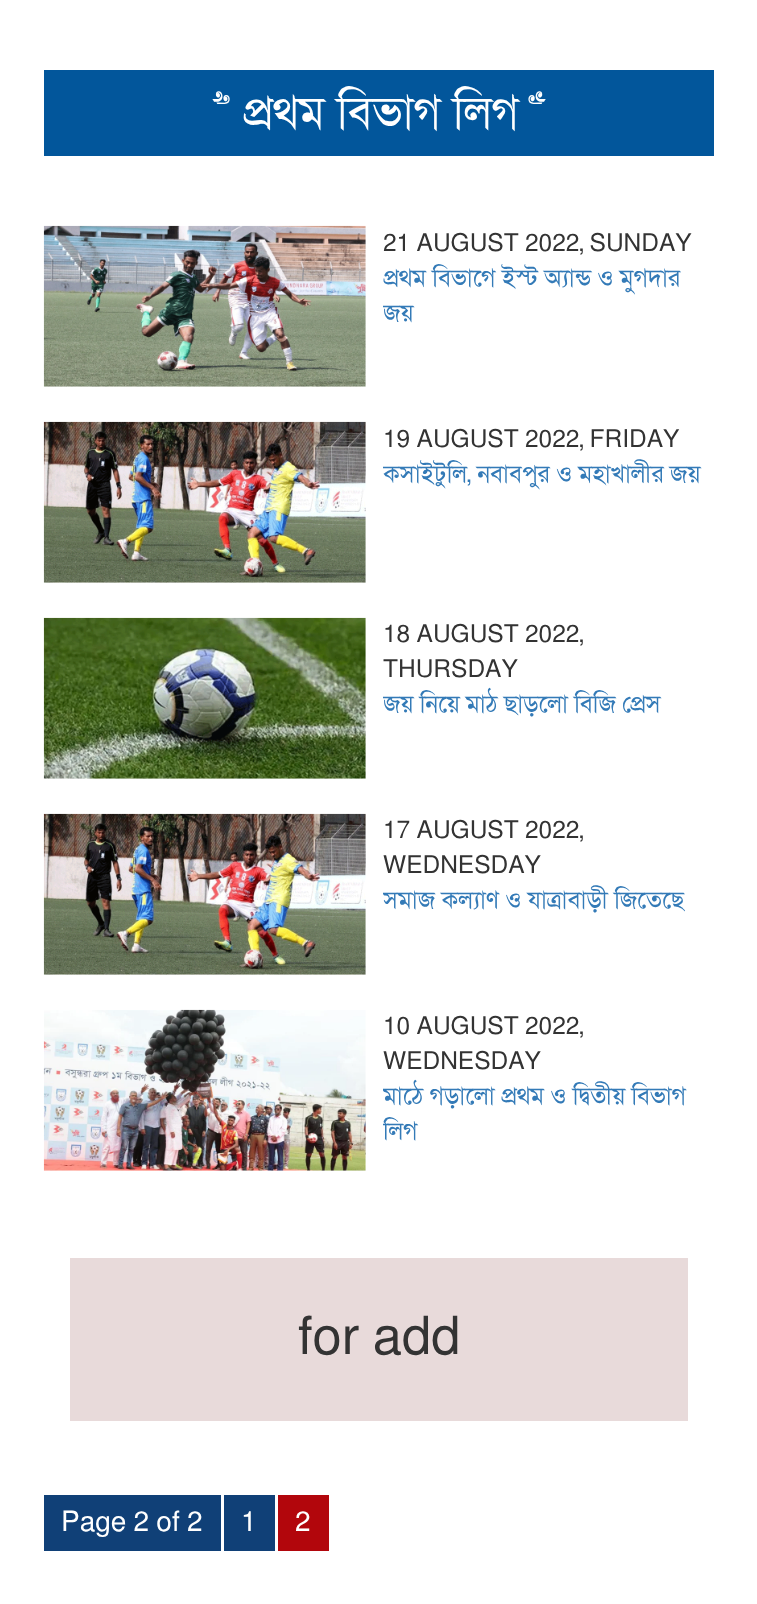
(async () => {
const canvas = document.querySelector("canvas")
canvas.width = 757
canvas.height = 1604
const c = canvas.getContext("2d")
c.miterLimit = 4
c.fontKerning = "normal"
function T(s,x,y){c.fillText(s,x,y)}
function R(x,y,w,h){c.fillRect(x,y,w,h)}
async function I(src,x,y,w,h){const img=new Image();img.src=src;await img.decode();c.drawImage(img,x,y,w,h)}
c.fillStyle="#fff"
R(0,0,757,1604)
c.fillStyle="#02569b"
R(44,70,670,86)
c.font="46.75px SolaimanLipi"
c.fillStyle="#fff"
T(">> প্রথম বিভাগ লিগ <<",215,128)
await I("1.png",43,225,323,162)
c.font="24.5px SolaimanLipi"
c.fillStyle="#333"
T("21 AUGUST 2022, SUNDAY",383,251)
c.fillStyle="#337ab7"
T("প্রথম বিভাগে ইস্ট অ্যান্ড ও মুগদার",383,286)
c.save()
c.beginPath()
c.rect(383,226,322,105)
c.clip()
T("জয়",383,321)
c.restore()
await I("2.png",43,421,323,162)
c.fillStyle="#333"
T("19 AUGUST 2022, FRIDAY",383,447)
c.save()
c.beginPath()
c.rect(383,422,322,70)
c.clip()
c.fillStyle="#337ab7"
T("কসাইটুলি, নবাবপুর ও মহাখালীর জয়",383,482)
c.restore()
await I("3.png",43,617,323,162)
T("18 AUGUST 2022,",383,642)
T("THURSDAY",383,677)
c.save()
c.beginPath()
c.rect(383,618,322,105)
c.clip()
c.fillStyle="#337ab7"
T("জয় নিয়ে মাঠ ছাড়লো বিজি প্রেস",383,712)
c.restore()
await I("2.png",43,813,323,162)
T("17 AUGUST 2022,",383,838)
T("WEDNESDAY",383,873)
c.save()
c.beginPath()
c.rect(383,814,322,105)
c.clip()
c.fillStyle="#337ab7"
T("সমাজ কল্যাণ ও যাত্রাবাড়ী জিতেছে",383,908)
c.restore()
await I("4.png",43,1009,323,162)
T("10 AUGUST 2022,",383,1034)
T("WEDNESDAY",383,1069)
c.save()
c.beginPath()
c.rect(383,1010,322,140)
c.clip()
c.fillStyle="#337ab7"
T("মাঠে গড়ালো প্রথম ও দ্বিতীয় বিভাগ",383,1104)
T("লিগ",383,1139)
c.restore()
c.fillStyle="#e8dada"
R(70,1258,618,163)
c.font="52.5px SolaimanLipi"
c.fillStyle="#333"
T("for add",298,1354)
c.fillStyle="#104077"
R(44,1495,177,56)
c.font="28px SolaimanLipi"
c.fillStyle="#fff"
T("Page 2 of 2",61,1531)
c.fillStyle="#104077"
R(224,1495,51,56)
c.fillStyle="#fff"
T("1",241,1531)
c.fillStyle="#b2060c"
R(278,1495,51,56)
c.fillStyle="#fff"
T("2",295,1531)
})()
